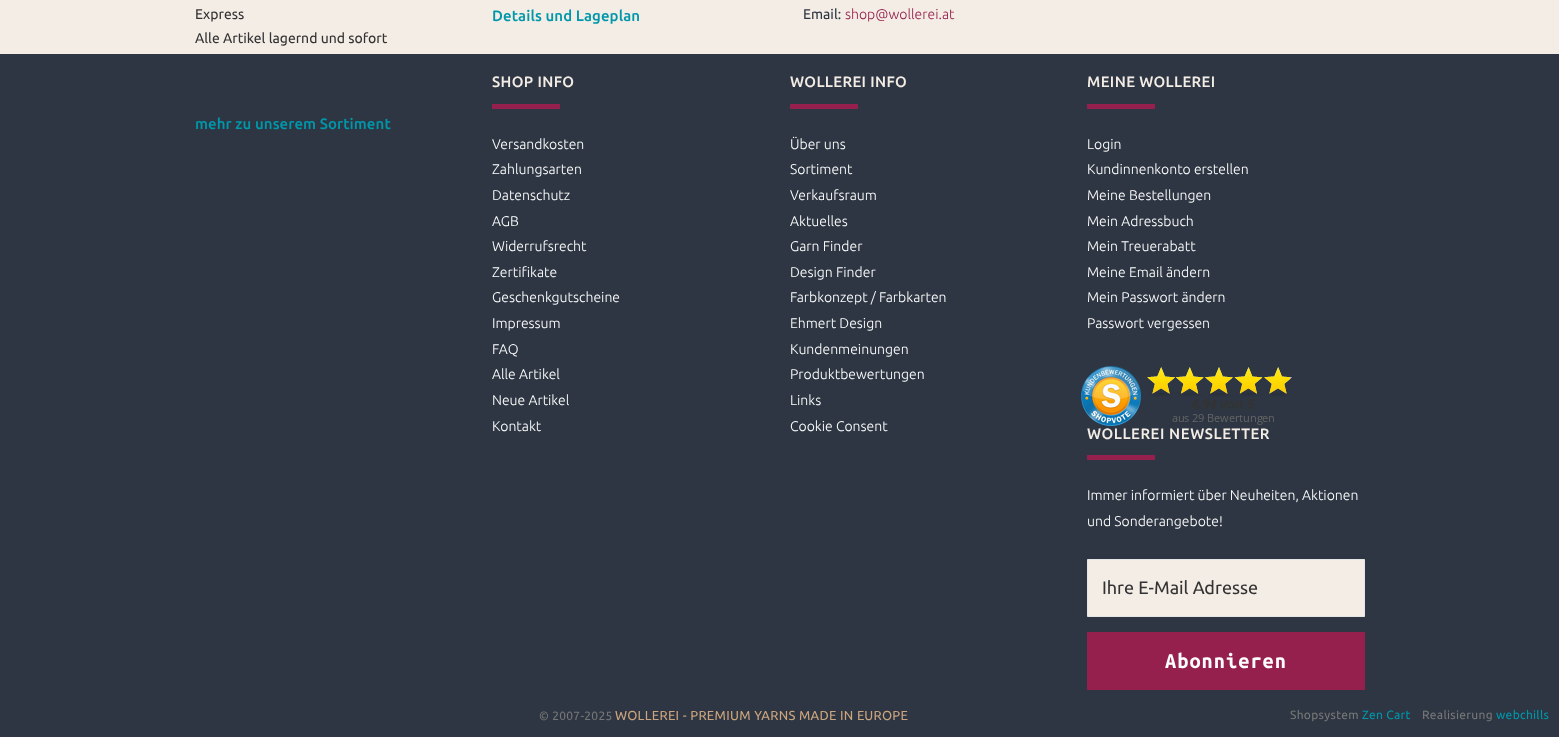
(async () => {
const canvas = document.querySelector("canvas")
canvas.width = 1559
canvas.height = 737
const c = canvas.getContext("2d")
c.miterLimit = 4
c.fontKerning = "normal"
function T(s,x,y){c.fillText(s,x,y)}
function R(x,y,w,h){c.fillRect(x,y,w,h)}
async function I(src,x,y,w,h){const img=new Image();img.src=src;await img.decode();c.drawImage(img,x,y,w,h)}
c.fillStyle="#f4ede6"
R(0,0,1559,737)
c.font="14px Ubuntu"
c.fillStyle="#333"
T("Express",195,19)
T("Alle Artikel lagernd und sofort",195,43)
c.fillStyle="#2d3642"
R(0,54,1559,683)
c.letterSpacing="0.1px"
c.font="500 15px Ubuntu"
c.fillStyle="#0097ab"
T("mehr zu unserem Sortiment",195,129)
T("Details und Lageplan",492,21)
c.letterSpacing="0px"
c.font="14px Ubuntu"
c.fillStyle="#2d3642"
T("Email:",803,19)
c.font="300 14px Ubuntu"
c.fillStyle="#95204d"
T("shop@wollerei.at",845,19)
c.letterSpacing="0.4px"
c.font="500 15px Ubuntu"
c.fillStyle="#f4ede6"
T("SHOP INFO",492,87)
c.fillStyle="#95204d"
R(492,104,68,5)
c.letterSpacing="0px"
c.font="300 14px Ubuntu"
c.fillStyle="#fff"
T("Versandkosten",492,149)
T("Zahlungsarten",492,174)
T("Datenschutz",492,200)
T("AGB",492,226)
T("Widerrufsrecht",492,251)
T("Zertifikate",492,277)
T("Geschenkgutscheine",492,302)
T("Impressum",492,328)
T("FAQ",492,354)
T("Alle Artikel",492,379)
T("Neue Artikel",492,405)
T("Kontakt",492,431)
c.letterSpacing="0.4px"
c.font="500 15px Ubuntu"
c.fillStyle="#f4ede6"
T("WOLLEREI INFO",790,87)
c.fillStyle="#95204d"
R(790,104,68,5)
c.letterSpacing="0px"
c.font="300 14px Ubuntu"
c.fillStyle="#fff"
T("Über uns",790,149)
T("Sortiment",790,174)
T("Verkaufsraum",790,200)
T("Aktuelles",790,226)
T("Garn Finder",790,251)
T("Design Finder",790,277)
T("Farbkonzept / Farbkarten",790,302)
T("Ehmert Design",790,328)
T("Kundenmeinungen",790,354)
T("Produktbewertungen",790,379)
T("Links",790,405)
T("Cookie Consent",790,431)
c.letterSpacing="0.4px"
c.font="500 15px Ubuntu"
c.fillStyle="#f4ede6"
T("MEINE WOLLEREI",1087,87)
c.fillStyle="#95204d"
R(1087,104,68,5)
c.letterSpacing="0px"
c.font="300 14px Ubuntu"
c.fillStyle="#fff"
T("Login",1087,149)
T("Kundinnenkonto erstellen",1087,174)
T("Meine Bestellungen",1087,200)
T("Mein Adressbuch",1087,226)
T("Mein Treuerabatt",1087,251)
T("Meine Email ändern",1087,277)
T("Mein Passwort ändern",1087,302)
T("Passwort vergessen",1087,328)
await I("1.png",1081,366,211,60)
c.letterSpacing="0.6px"
c.font="500 15px Ubuntu"
c.fillStyle="#f4ede6"
T("WOLLEREI NEWSLETTER",1087,439)
c.fillStyle="#95204d"
R(1087,455,68,5)
c.letterSpacing="0px"
c.font="300 14px Ubuntu"
c.fillStyle="#fff"
T("Immer informiert über Neuheiten, Aktionen",1087,500)
T("und Sonderangebote!",1087,526)
c.fillStyle="#f4ede6"
c.beginPath()
c.rect(1087.5,559.5,277,57)
c.fill()
c.strokeStyle="#e5e5e5"
c.stroke()
c.font="18px Ubuntu"
c.fillStyle="#333"
T("Ihre E-Mail Adresse",1102,594)
c.fillStyle="#95204d"
R(1087,632,278,58)
c.letterSpacing="1px"
c.font="bold 20px Ubuntu Mono"
c.fillStyle="#fff"
T("Abonnieren",1165,668)
c.letterSpacing="0.3px"
c.font="12px Ubuntu"
c.fillStyle="#777"
T("© 2007-2025",539,720)
c.font="13px Ubuntu"
c.fillStyle="#cca47e"
T("WOLLEREI - PREMIUM YARNS MADE IN EUROPE",615,720)
c.font="12px Ubuntu"
c.fillStyle="#777"
T("Shopsystem",1290,719)
c.fillStyle="#0097ab"
T("Zen Cart",1362,719)
c.fillStyle="#777"
T("Realisierung",1422,719)
c.fillStyle="#0097ab"
T("webchills",1496,719)
})()
